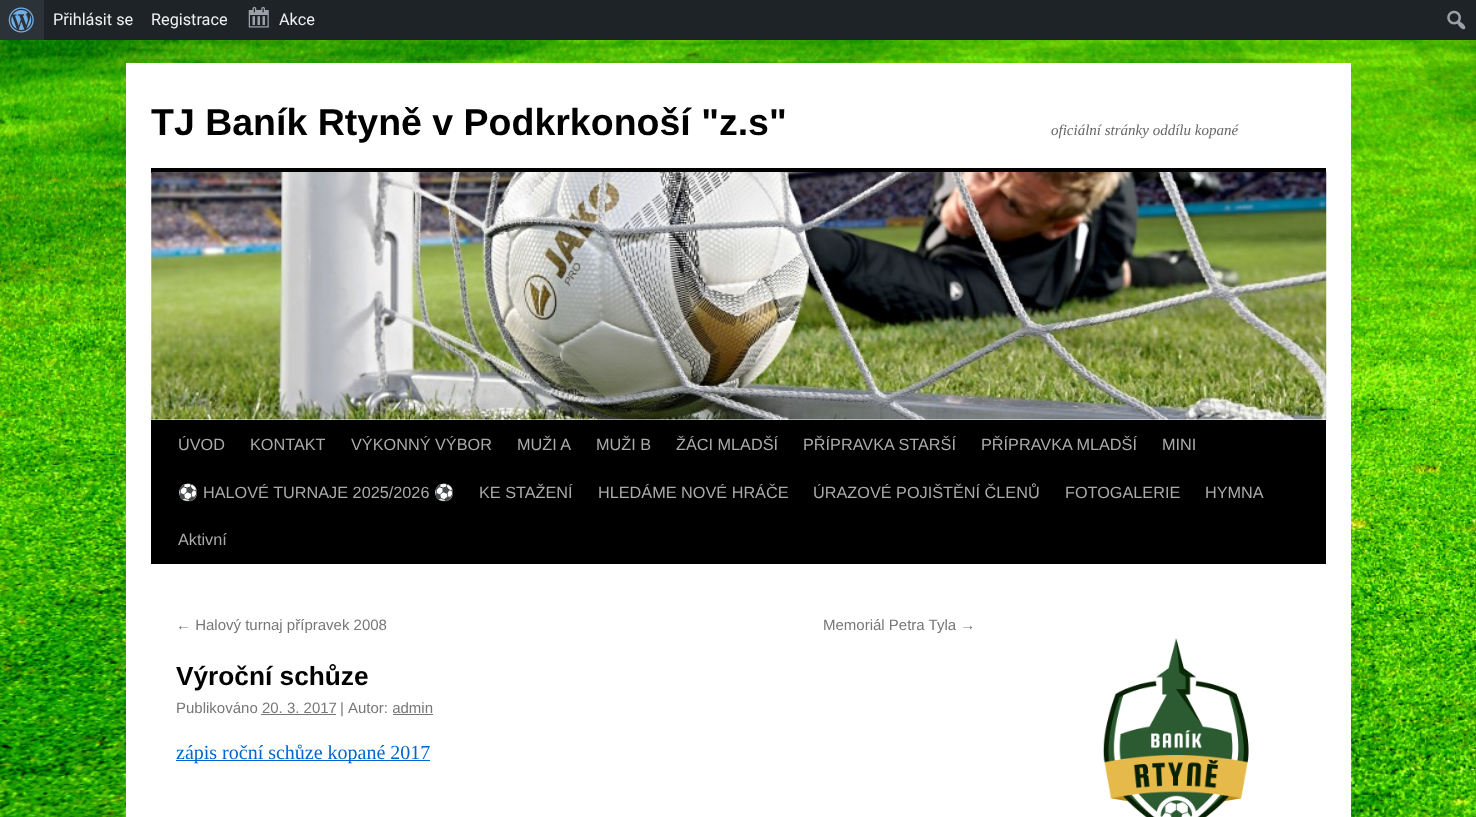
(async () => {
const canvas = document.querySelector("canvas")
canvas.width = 1476
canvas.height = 817
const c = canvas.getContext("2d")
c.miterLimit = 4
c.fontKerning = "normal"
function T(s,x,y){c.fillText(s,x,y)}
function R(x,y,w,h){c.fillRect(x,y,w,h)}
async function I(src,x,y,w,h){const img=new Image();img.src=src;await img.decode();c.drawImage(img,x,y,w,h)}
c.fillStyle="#fff"
R(0,0,1476,817)
await I("1.png",0,40,1476,777)
c.fillStyle="#1d2327"
R(44,0,1432,40)
c.fillStyle="#2c3338"
R(0,0,44,40)
await I("2.png",8,7,26,26)
c.font="16.25px Roboto"
c.fillStyle="#f0f0f1"
T("Přihlásit se",53,25)
T("Registrace",151,25)
await I("3.png",248,6,21,22)
T("Akce",279,25)
await I("4.png",1447,10,19,20)
c.fillStyle="#fff"
R(126,63,1225,754)
c.font="bold 37.5px Liberation Sans"
c.fillStyle="#000"
T("TJ Baník Rtyně v Podkrkonoší \"z.s\"",151,135)
c.font="italic 15px Liberation Serif"
c.fillStyle="#666"
T("oficiální stránky oddílu kopané",1051,135)
c.fillStyle="#000"
R(151,168,1175,5)
R(151,420,1175,144)
await I("5.png",151,172,1176,248)
c.font="16.25px Liberation Sans"
c.fillStyle="#aaa"
T("ÚVOD",178,450)
T("KONTAKT",250,450)
T("VÝKONNÝ VÝBOR",351,450)
T("MUŽI A",517,450)
T("MUŽI B",596,450)
T("ŽÁCI MLADŠÍ",676,450)
T("PŘÍPRAVKA STARŠÍ",803,450)
T("PŘÍPRAVKA MLADŠÍ",981,450)
T("MINI",1162,450)
c.font="16.25px Noto Color Emoji"
T("⚽",178,498)
c.font="16.25px Liberation Sans"
T("HALOVÉ TURNAJE 2025/2026",203,498)
c.font="16.25px Noto Color Emoji"
T("⚽",434,498)
c.font="16.25px Liberation Sans"
T("KE STAŽENÍ",479,498)
T("HLEDÁME NOVÉ HRÁČE",598,498)
T("ÚRAZOVÉ POJIŠTĚNÍ ČLENŮ",813,498)
T("FOTOGALERIE",1065,498)
T("HYMNA",1205,498)
T("Aktivní",178,545)
c.font="15px Liberation Sans"
c.fillStyle="#777"
T("← Halový turnaj přípravek 2008",176,630)
T("Memoriál Petra Tyla →",823,630)
c.font="bold 26.25px Liberation Sans"
c.fillStyle="#000"
T("Výroční schůze",176,685)
c.font="15px Liberation Sans"
c.fillStyle="#777"
T("Publikováno 20. 3. 2017",176,713)
T("|",340,713)
T("Autor: admin",348,713)
R(261,714,75,1)
R(393,714,40,1)
c.fillStyle="#06c"
R(176,760,254,1)
c.font="20px Liberation Serif"
T("zápis roční schůze kopané 2017",176,759)
await I("6.png",1103,638,146,179)
})()
